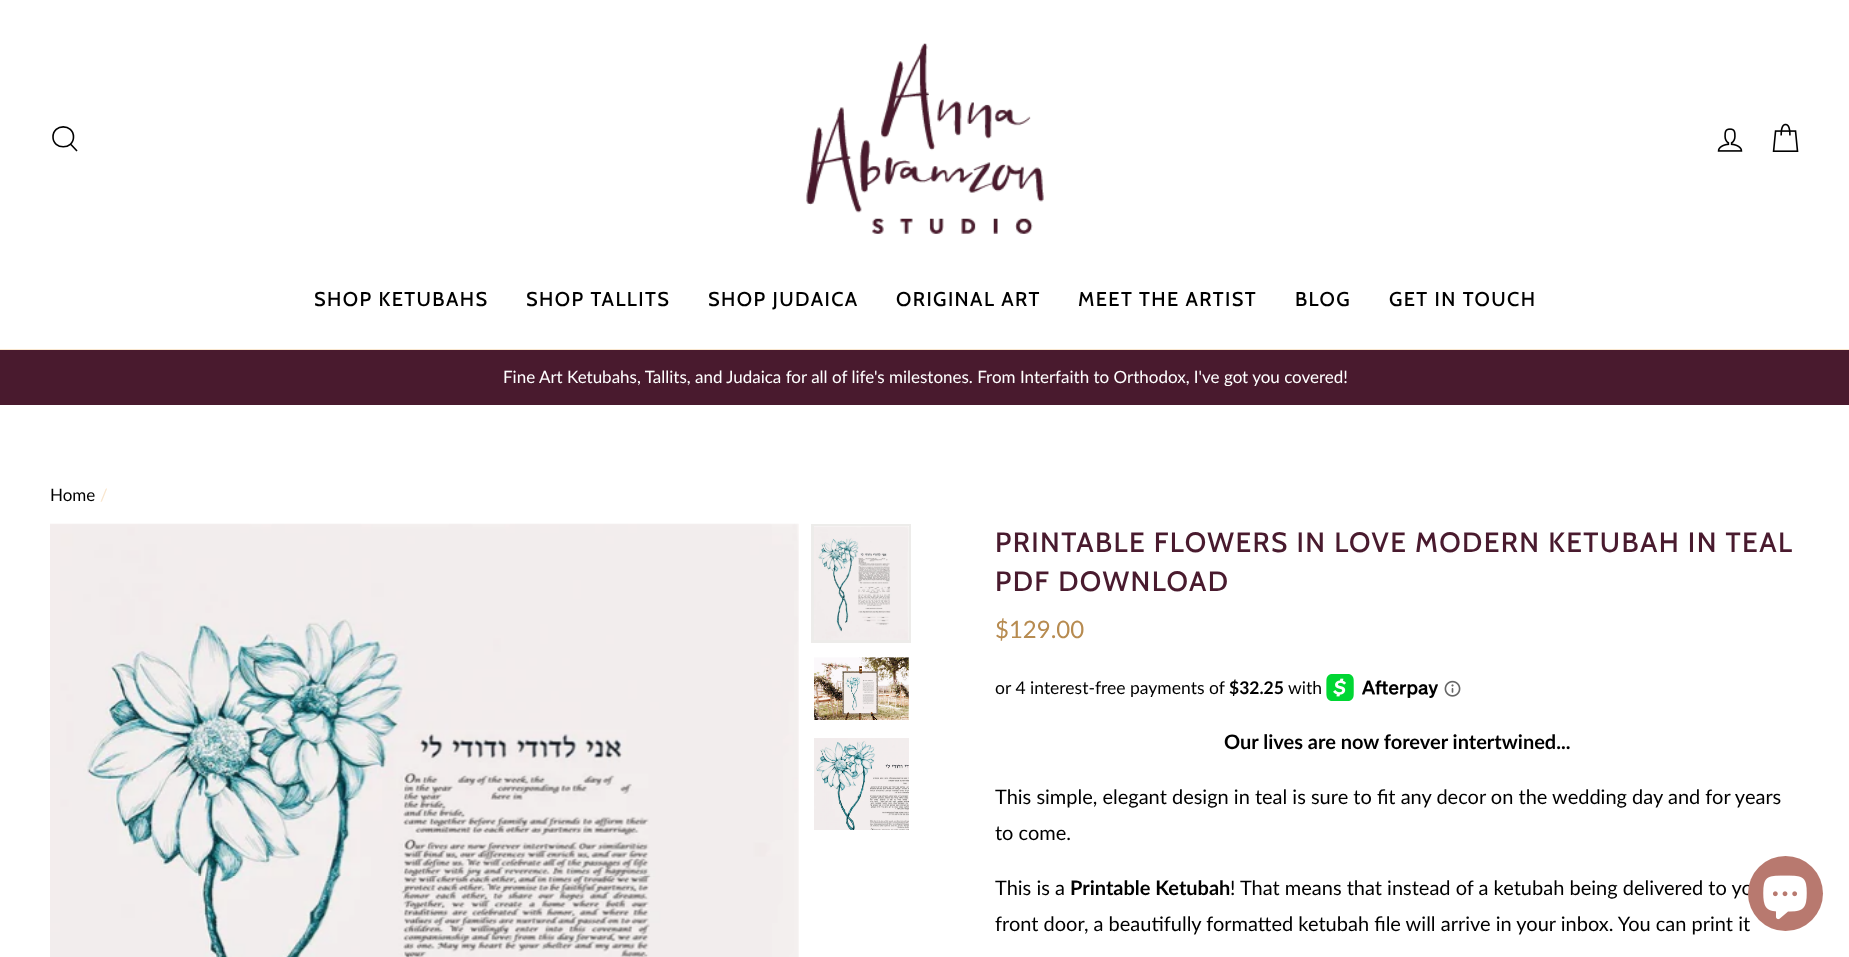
(async () => {
const canvas = document.querySelector("canvas")
canvas.width = 1849
canvas.height = 957
const c = canvas.getContext("2d")
c.miterLimit = 4
c.fontKerning = "normal"
function T(s,x,y){c.fillText(s,x,y)}
function R(x,y,w,h){c.fillRect(x,y,w,h)}
async function I(src,x,y,w,h){const img=new Image();img.src=src;await img.decode();c.drawImage(img,x,y,w,h)}
let path
c.fillStyle="#fff"
R(0,0,1849,957)
c.fillStyle="#f9e6ce"
R(0,349,1849,1)
path = new Path2D("M73.5 137c0 13-20.5 13-20.5 0c0-13.5 20.5-13.5 20.5 0zm3.5 14l-6.5-7")
c.strokeStyle="#000"
c.lineWidth=1.6
c.stroke(path)
await I("1.png",806,43,238,191)
await I("2.png",1717,128,26,24)
await I("3.png",1772,123,27,29)
c.letterSpacing="1.4px"
c.font="500 20px Cabin"
c.fillStyle="#000"
T("SHOP KETUBAHS",314,306)
T("SHOP TALLITS",526,306)
T("SHOP JUDAICA",708,306)
T("ORIGINAL ART",896,306)
T("MEET THE ARTIST",1078,306)
T("BLOG",1295,306)
T("GET IN TOUCH",1389,306)
c.fillStyle="#491a2e"
R(0,350,1849,55)
c.letterSpacing="0px"
c.font="17px Lato"
c.fillStyle="#fff"
T("Fine Art Ketubahs, Tallits, and Judaica for all of life's milestones. From Interfaith to Orthodox, I've got you covered!",503,383)
c.fillStyle="#000"
T("Home",50,501)
c.fillStyle="#f9e6ce"
T("/",100,501)
await I("4.png",50,523,749,434)
c.strokeStyle="#edecea"
c.lineWidth=3
c.strokeRect(812.5,525.5,97,116)
c.fillStyle="#fff"
R(814,526,95,114)
await I("5.png",814,526,95,114)
await I("6.png",814,657,95,63)
await I("7.png",814,738,95,92)
c.letterSpacing="1.4px"
c.font="500 28px Cabin"
c.fillStyle="#491a2e"
T("PRINTABLE FLOWERS IN LOVE MODERN KETUBAH IN TEAL",995,552)
T("PDF DOWNLOAD",995,591)
c.letterSpacing="0px"
c.font="24px Lato"
c.fillStyle="#b78b50"
T("$129.00",995,638)
c.font="17.5px Lato"
c.fillStyle="#000"
T("or 4 interest-free payments of",995,694)
c.font="bold 17.5px Lato"
T("$32.25",1229,694)
c.font="17.5px Lato"
T("with",1288,694)
await I("8.png",1326,674,112,27)
await I("9.png",1444,680,17,17)
c.font="bold 20px Lato"
T("Our lives are now forever intertwined...",1224,749)
c.font="20px Lato"
T("This simple, elegant design in teal is sure to fit any decor on the wedding day and for years",995,804)
T("to come.",995,840)
T("This is a",995,895)
c.font="bold 20px Lato"
T("Printable Ketubah",1070,895)
c.font="20px Lato"
T("! That means that instead of a ketubah being delivered to yo",1230,895)
T("front door, a beautifully formatted ketubah file will arrive in your inbox. You can print it",995,931)
c.fillStyle="#b8796f"
c.beginPath()
c.arc(1785.5,893.5,37.5,0,7)
c.fill()
await I("10.png",1763,875,44,45)
})()
